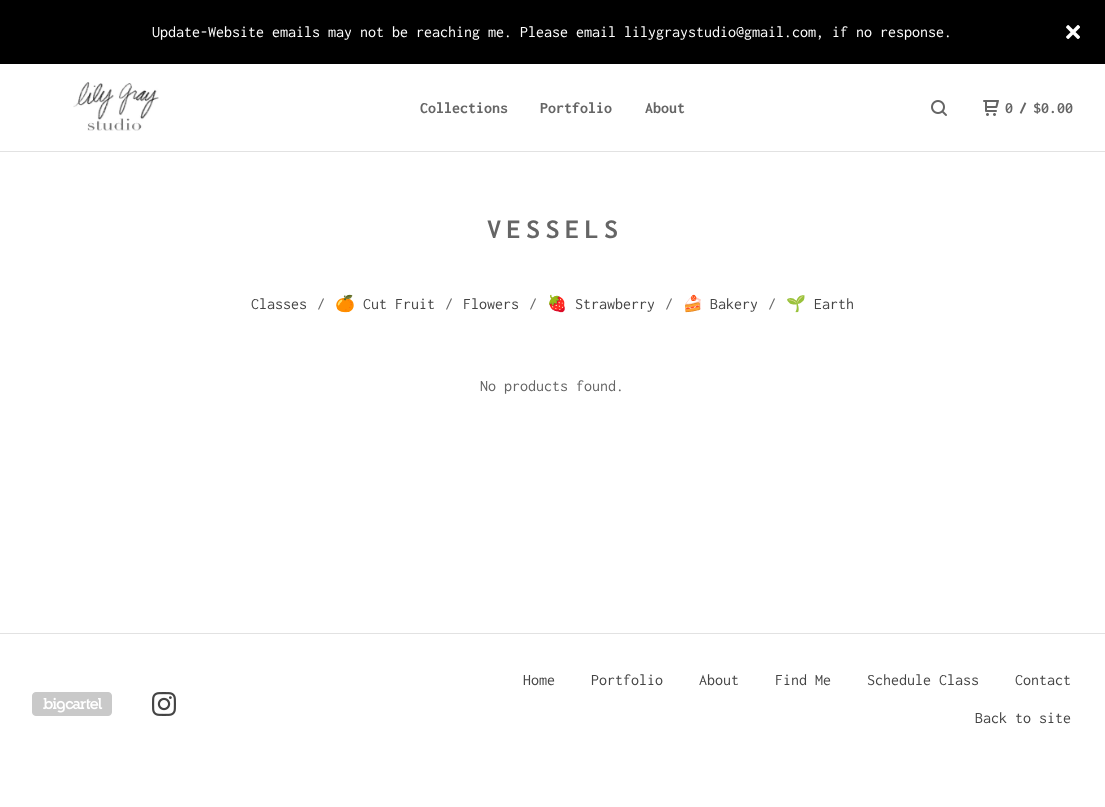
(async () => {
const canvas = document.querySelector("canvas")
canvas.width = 1105
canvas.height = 807
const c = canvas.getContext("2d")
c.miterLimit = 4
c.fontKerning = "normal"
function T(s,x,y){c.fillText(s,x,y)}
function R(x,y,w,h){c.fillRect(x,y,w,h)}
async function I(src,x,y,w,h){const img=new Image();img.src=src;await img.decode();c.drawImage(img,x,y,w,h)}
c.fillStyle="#fff"
R(0,0,1105,807)
c.fillStyle="#000"
R(0,0,1105,64)
c.font="16px Inconsolata"
c.fillStyle="#fff"
T("Update-Website emails may not be reaching me. Please email lilygraystudio@gmail.com, if no response.",152,37)
await I("1.png",1066,25,14,14)
c.fillStyle="#e2e2e2"
R(0,151,1105,1)
await I("2.png",73,82,86,49)
c.font="bold 16px Inconsolata"
c.fillStyle="#656565"
T("Collections",420,113)
T("Portfolio",540,113)
T("About",645,113)
await I("3.png",931,100,16,16)
await I("4.png",983,100,16,16)
T("0",1005,113)
T("/",1019,113)
T("$0.00",1033,113)
c.letterSpacing="5.5px"
c.font="bold 28px Inconsolata"
T("VESSELS",487,238)
c.letterSpacing="0px"
c.font="16px Inconsolata"
c.fillStyle="#444"
T("Classes",251,309)
c.fillStyle="#656565"
T("/",317,309)
c.font="16px Noto Color Emoji"
c.fillStyle="#444"
T("🍊",335,309)
c.font="16px Inconsolata"
T("Cut Fruit",363,309)
c.fillStyle="#656565"
T("/",445,309)
c.fillStyle="#444"
T("Flowers",463,309)
c.fillStyle="#656565"
T("/",529,309)
c.font="16px Noto Color Emoji"
c.fillStyle="#444"
T("🍓",547,309)
c.font="16px Inconsolata"
T("Strawberry",575,309)
c.fillStyle="#656565"
T("/",665,309)
c.font="16px Noto Color Emoji"
c.fillStyle="#444"
T("🍰",683,309)
c.font="16px Inconsolata"
T("Bakery",710,309)
c.fillStyle="#656565"
T("/",768,309)
c.font="16px Noto Color Emoji"
c.fillStyle="#444"
T("🌱",786,309)
c.font="16px Inconsolata"
T("Earth",814,309)
c.fillStyle="#656565"
T("No products found.",480,391)
c.fillStyle="#e2e2e2"
R(0,633,1105,1)
await I("5.png",32,692,80,24)
await I("6.png",152,692,24,24)
c.fillStyle="#444"
T("Home",523,685)
T("Portfolio",591,685)
T("About",699,685)
T("Find Me",775,685)
T("Schedule Class",867,685)
T("Contact",1015,685)
T("Back to site",975,723)
})()
